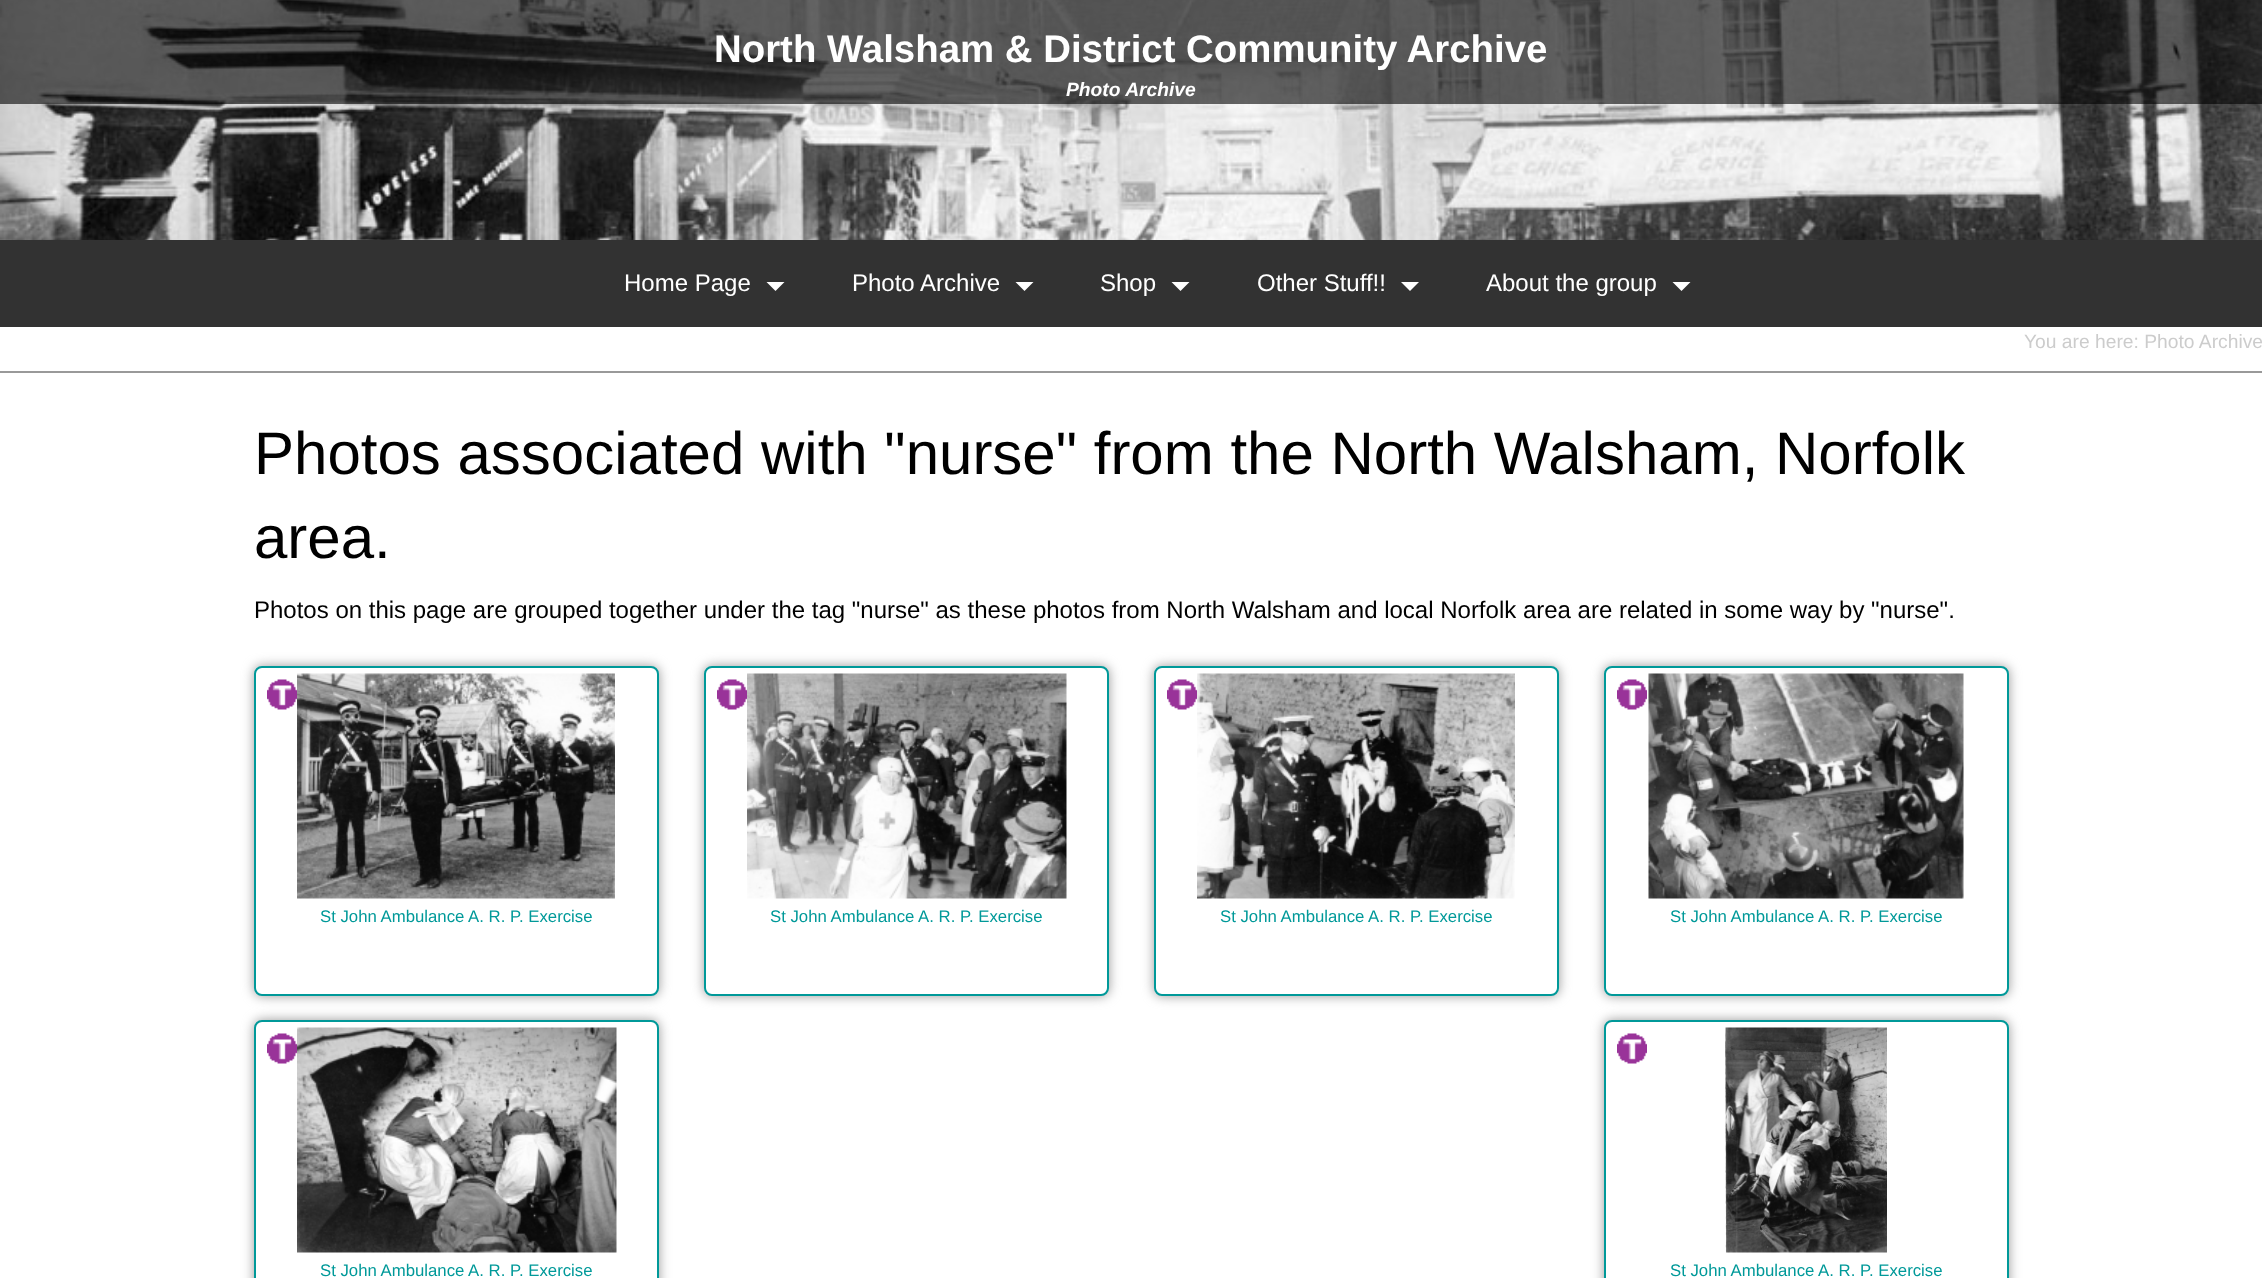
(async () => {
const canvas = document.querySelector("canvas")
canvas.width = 2262
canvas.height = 1278
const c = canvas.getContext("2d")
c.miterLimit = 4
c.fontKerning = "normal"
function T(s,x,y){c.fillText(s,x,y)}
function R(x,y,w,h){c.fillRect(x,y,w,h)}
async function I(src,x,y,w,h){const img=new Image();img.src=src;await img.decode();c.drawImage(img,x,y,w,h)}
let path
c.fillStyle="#fff"
R(0,0,2262,1278)
await I("1.png",0,0,2262,240)
c.fillStyle="#00000099"
R(0,0,2262,77)
c.font="bold 38.4px Liberation Sans"
c.fillStyle="#fff"
T("North Walsham & District Community Archive",714,62)
c.fillStyle="#00000099"
R(0,77,2262,27)
c.font="italic bold 19.25px Liberation Sans"
c.fillStyle="#fff"
T("Photo Archive",1066,96)
c.fillStyle="#323232"
R(0,240,2262,87)
c.font="24px Liberation Sans"
c.fillStyle="#fff"
T("Home Page",624,291)
path = new Path2D("M766.5 282h18l-9 9z")
c.fill(path)
T("Photo Archive",852,291)
path = new Path2D("M1015.5 282h18l-9 9z")
c.fill(path)
T("Shop",1100,291)
path = new Path2D("M1171.5 282h18l-9 9z")
c.fill(path)
T("Other Stuff!!",1257,291)
path = new Path2D("M1401 282h18l-9 9z")
c.fill(path)
T("About the group",1486,291)
path = new Path2D("M1672.5 282h18l-9 9z")
c.fill(path)
c.fillStyle="#999"
R(0,371,2262,2)
c.font="19.25px Liberation Sans"
c.fillStyle="#ccc"
T("You are here: Photo Archive",2024,348)
c.font="60px Liberation Sans"
c.fillStyle="#000"
T("Photos associated with \"nurse\" from the North Walsham, Norfolk",254,474)
T("area.",254,558)
c.font="24px Liberation Sans"
T("Photos on this page are grouped together under the tag \"nurse\" as these photos from North Walsham and local Norfolk area are related in some way by \"nurse\".",254,618)
c.fillStyle="#999"
c.filter="blur(6px)"
c.beginPath()
c.roundRect(254,666,405,330,8)
c.fill()
c.filter="none"
c.fillStyle="#fff"
c.beginPath()
c.roundRect(255,667,403,328,7)
c.fill()
c.strokeStyle="#099"
c.lineWidth=2
c.stroke()
await I("2.png",297,673,318,226)
await I("3.png",267,679,30,31)
c.font="16.75px Liberation Sans"
c.fillStyle="#099"
T("St John Ambulance A. R. P. Exercise",320,922)
c.fillStyle="#999"
c.filter="blur(6px)"
c.beginPath()
c.roundRect(704,666,405,330,8)
c.fill()
c.filter="none"
c.fillStyle="#fff"
c.beginPath()
c.roundRect(705,667,403,328,7)
c.fill()
c.stroke()
await I("4.png",747,673,320,226)
await I("5.png",717,679,30,31)
c.fillStyle="#099"
T("St John Ambulance A. R. P. Exercise",770,922)
c.fillStyle="#999"
c.filter="blur(6px)"
c.beginPath()
c.roundRect(1154,666,405,330,8)
c.fill()
c.filter="none"
c.fillStyle="#fff"
c.beginPath()
c.roundRect(1155,667,403,328,7)
c.fill()
c.stroke()
await I("6.png",1197,673,318,226)
await I("5.png",1167,679,30,31)
c.fillStyle="#099"
T("St John Ambulance A. R. P. Exercise",1220,922)
c.fillStyle="#999"
c.filter="blur(6px)"
c.beginPath()
c.roundRect(1604,666,405,330,8)
c.fill()
c.filter="none"
c.fillStyle="#fff"
c.beginPath()
c.roundRect(1605,667,403,328,7)
c.fill()
c.stroke()
await I("7.png",1648,673,316,226)
await I("8.png",1617,679,30,31)
c.fillStyle="#099"
T("St John Ambulance A. R. P. Exercise",1670,922)
c.fillStyle="#999"
c.filter="blur(6px)"
c.beginPath()
c.roundRect(254,1020,405,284,8)
c.fill()
c.filter="none"
c.fillStyle="#fff"
c.beginPath()
c.roundRect(255,1021,403,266,7)
c.fill()
c.stroke()
await I("9.png",297,1027,320,226)
await I("3.png",267,1033,30,31)
c.fillStyle="#099"
T("St John Ambulance A. R. P. Exercise",320,1276)
c.fillStyle="#999"
c.filter="blur(6px)"
c.beginPath()
c.roundRect(1604,1020,405,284,8)
c.fill()
c.filter="none"
c.fillStyle="#fff"
c.beginPath()
c.roundRect(1605,1021,403,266,7)
c.fill()
c.stroke()
await I("10.png",1725,1027,162,226)
await I("8.png",1617,1033,30,31)
c.fillStyle="#099"
T("St John Ambulance A. R. P. Exercise",1670,1276)
})()
